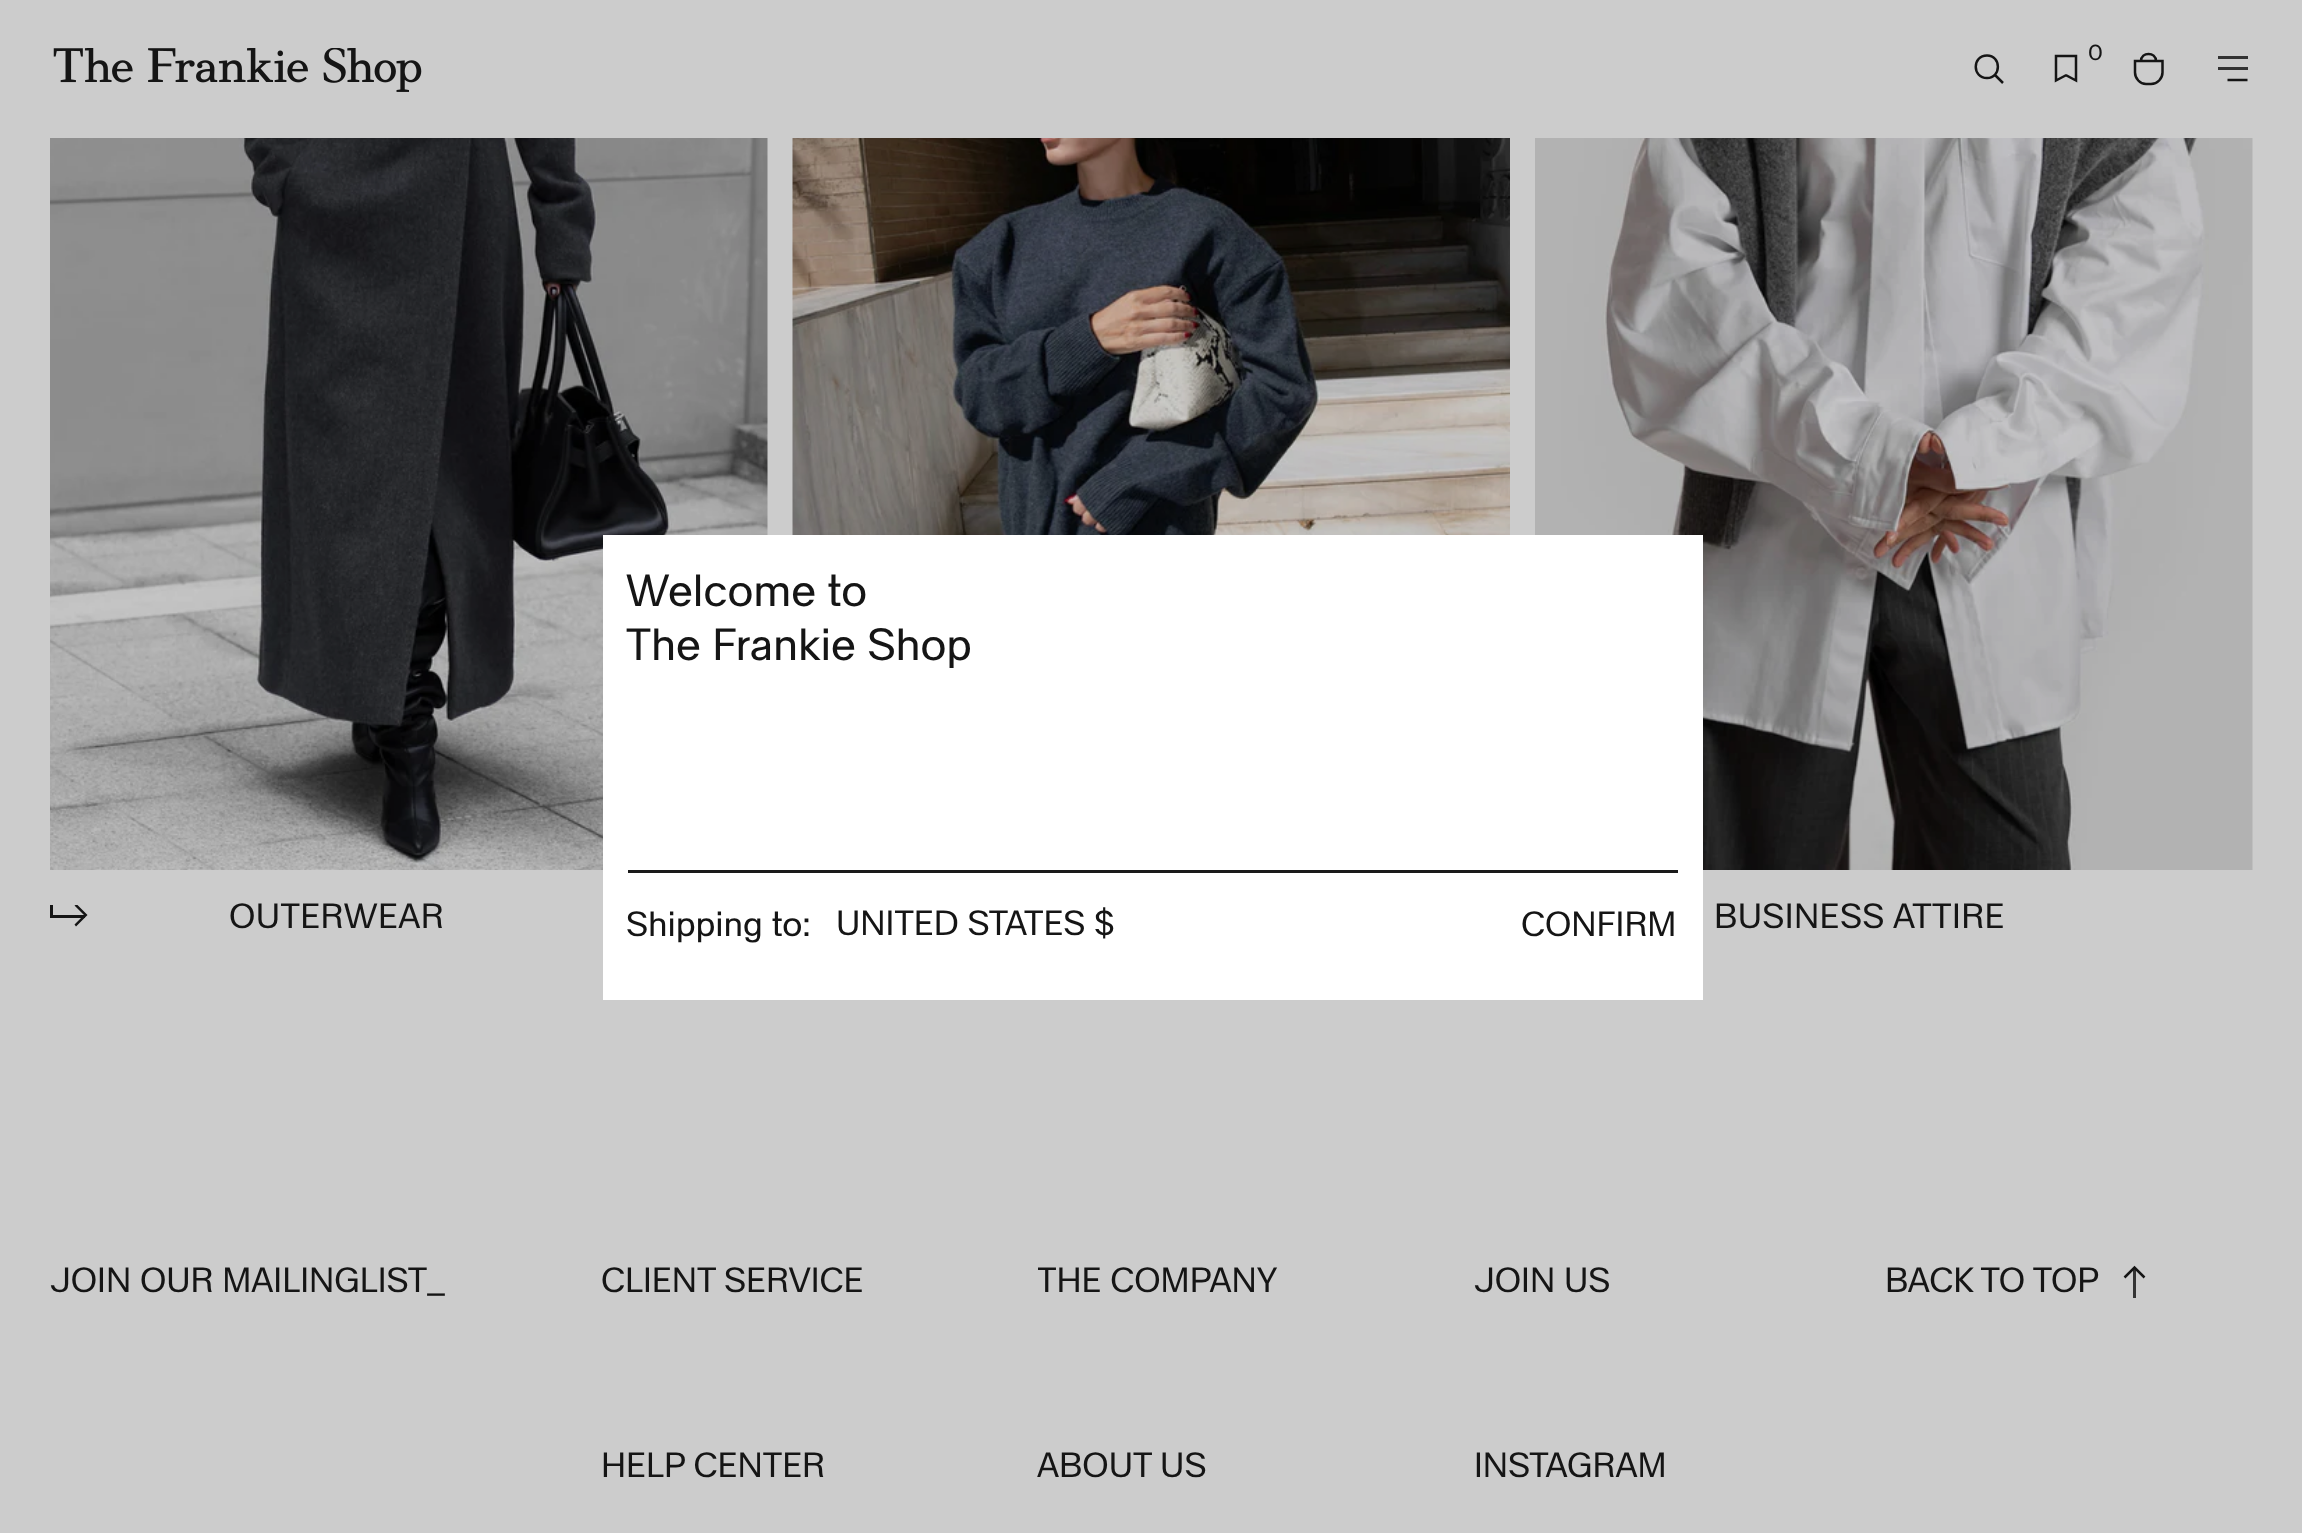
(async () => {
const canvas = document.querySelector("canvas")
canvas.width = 2302
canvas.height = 1533
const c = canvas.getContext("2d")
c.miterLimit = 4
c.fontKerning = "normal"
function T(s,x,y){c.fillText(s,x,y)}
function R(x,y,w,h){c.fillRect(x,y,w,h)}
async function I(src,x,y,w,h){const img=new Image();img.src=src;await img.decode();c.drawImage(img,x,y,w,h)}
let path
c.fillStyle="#ccc"
R(0,0,2302,1533)
await I("1.png",53,48,369,44)
path = new Path2D("M1987 55.5c-15 0-15 22.5 0 22.5c14.5 0 14.5-22.5 0-22.5zm7.5 19l8.5 8.5")
c.strokeStyle="#151515"
c.lineWidth=2.5
c.stroke(path)
path = new Path2D("M2065.5 75.5l-9.5 5v-24.5h20v24.5l-9.5-5z")
c.stroke(path)
c.font="22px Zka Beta"
c.fillStyle="#151515"
T("0",2088,60)
path = new Path2D("M2156 61c0-9.5-15-9.5-15 0m-6 0h27.5v11.5c0 6-5 11.5-11.5 11.5h-5c-6 0-11-5.5-11-11.5z")
c.stroke(path)
c.fillStyle="#333"
R(2218,56,30,3)
R(2218,67,30,3)
path = new Path2D("M2227.5 80h20")
c.stroke(path)
await I("3.png",50,138,718,732)
await I("4.png",1535,138,718,732)
c.fillStyle="#fff"
R(603,535,1100,465)
c.font="45px Zka Beta"
c.fillStyle="#151515"
T("Welcome to",626,606)
T("The Frankie Shop",626,660)
c.fillStyle="#1a1a1a"
R(628,870,1050,3)
c.font="35px Zka Beta"
c.fillStyle="#151515"
T("Shipping to:",626,936)
T("UNITED STATES $",836,935)
T("CONFIRM",1521,936)
await I("2.png",792,138,718,397)
R(50,915,35,3)
R(50,905,3,10)
path = new Path2D("M74.5 905.5l9.5 9.5l-9.5 9.5l1.5 2l11.5-11.5l-10-10h-2z")
c.fill(path)
c.letterSpacing="0.4px"
T("OUTERWEAR",229,928)
T("BUSINESS ATTIRE",1714,928)
c.letterSpacing="0px"
T("JOIN OUR MAILINGLIST_",50,1292)
T("CLIENT SERVICE",601,1292)
T("HELP CENTER",601,1477)
c.save()
c.beginPath()
c.rect(1038,1263,412,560)
c.clip()
T("THE COMPANY",1037,1292)
c.restore()
T("ABOUT US",1037,1477)
T("JOIN US",1474,1292)
T("INSTAGRAM",1474,1477)
T("BACK TO TOP",1885,1292)
path = new Path2D("M2124.5 1277.5l10-10l10 10")
c.stroke(path)
c.fillStyle="#151515d4"
R(2133,1268,3,30)
})()
